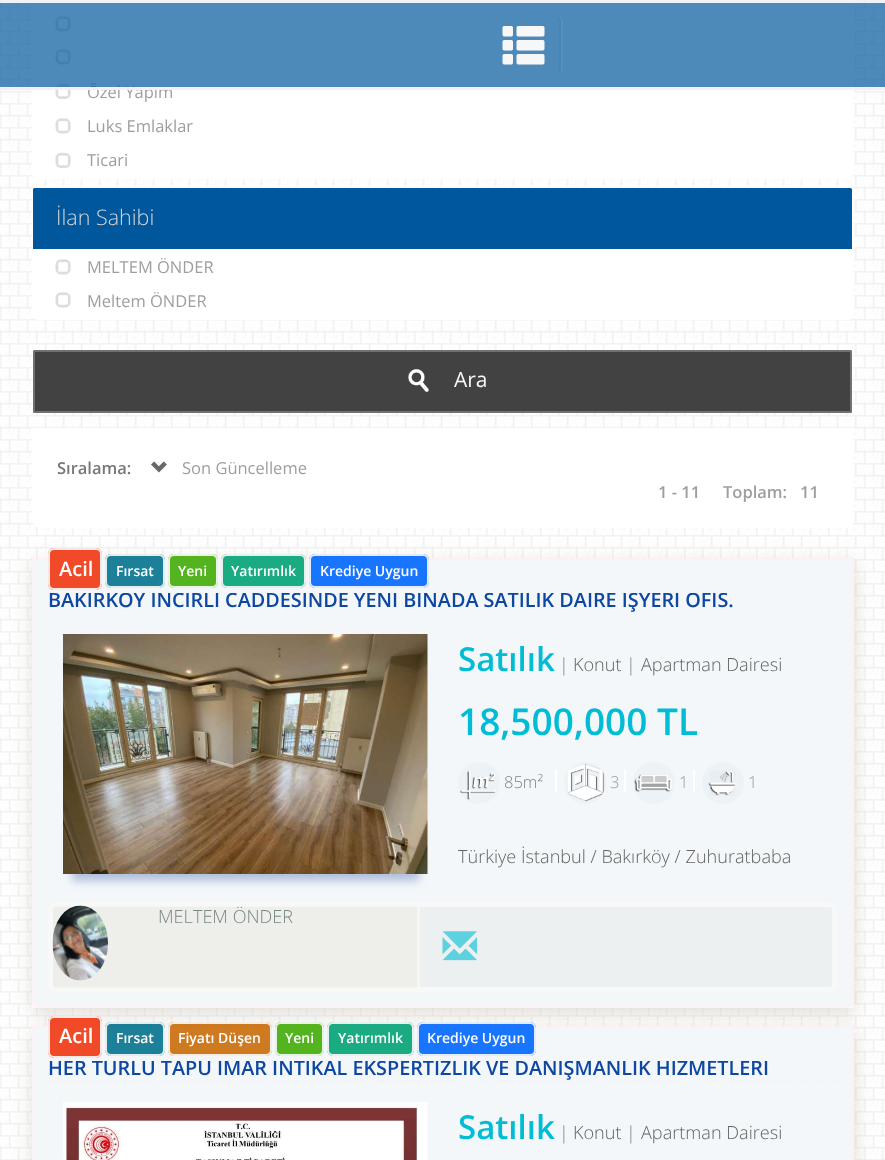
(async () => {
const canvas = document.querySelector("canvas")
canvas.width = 885
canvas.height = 1160
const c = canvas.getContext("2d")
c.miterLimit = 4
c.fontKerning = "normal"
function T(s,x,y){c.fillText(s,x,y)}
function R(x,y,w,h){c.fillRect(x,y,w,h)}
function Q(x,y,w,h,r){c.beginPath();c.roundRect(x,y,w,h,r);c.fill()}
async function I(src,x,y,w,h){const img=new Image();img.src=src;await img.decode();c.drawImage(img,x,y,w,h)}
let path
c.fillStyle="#fff"
R(0,0,885,1160)
await I("1.png",0,0,885,1160)
Q(32,-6,822,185,6)
await I("3.png",55,16,16,16)
await I("3.png",55,49,16,16)
await I("4.png",55,83,16,16)
c.font="16.5px Open Sans"
c.fillStyle="#9e9e9e"
T("Özel Yapım",87,98)
c.fillStyle="#01579bb3"
R(0,0,885,90)
c.fillStyle="#ffffffe6"
R(0,0,885,3)
R(0,87,885,3)
c.fillStyle="#568fbc"
path = new Path2D("M555 75c9 0 8-6 8-14v-32c0-8 1-14-8-14c3 0 6 3 6 6v48c0 3-3 6-6 6z")
c.fill(path)
path = new Path2D("M558.5 17.5c1 1 1.5 2 1.5 3.5v48c0 1.5-.5 2.5-1.5 3.5")
c.strokeStyle="#4983b0"
c.lineWidth=1.5
c.stroke(path)
await I("2.png",502,26,43,39)
await I("3.png",55,118,16,16)
c.fillStyle="#9e9e9e"
T("Luks Emlaklar",87,132)
await I("4.png",55,152,16,16)
T("Ticari",87,166)
c.fillStyle="#fff"
Q(32,186,822,134,6)
c.fillStyle="#01579b"
c.beginPath()
c.roundRect(33,188,819,61,[1.5,1.5,0,0])
c.fill()
c.font="300 21.5px Open Sans"
c.fillStyle="#d5d5d5"
T("İlan Sahibi",56,225)
await I("3.png",55,259,16,16)
c.font="16.5px Open Sans"
c.fillStyle="#9e9e9e"
T("MELTEM ÖNDER",87,273)
await I("3.png",55,292,16,16)
T("Meltem ÖNDER",87,307)
c.fillStyle="#424242"
Q(33,350,819,63,1.5)
c.beginPath()
c.roundRect(34,351,817,61,.5)
c.strokeStyle="#ffffff40"
c.lineWidth=2
c.stroke()
await I("5.png",408,368,21,25)
c.font="21px Open Sans"
c.fillStyle="#f7f7f7"
T("Ara",454,387)
c.fillStyle="#fff"
c.beginPath()
c.roundRect(32,428,822,100,[0,0,8,8])
c.fill()
c.font="600 16.5px Open Sans"
c.fillStyle="#777"
T("Sıralama:",57,474)
await I("6.png",151,461,16,12)
c.font="16.5px Open Sans"
c.fillStyle="#9e9e9e"
T("Son Güncelleme",182,474)
c.font="600 16.5px Open Sans"
T("1 - 11",658,498)
T("Toplam:",723,498)
T("11",800,498)
c.fillStyle="#cec8bd99"
c.filter="blur(9px)"
c.beginPath()
c.roundRect(33,563,822,450,1.5)
c.fill()
c.filter="none"
c.fillStyle="#f8f8f8"
Q(32,558,822,450,1.5)
c.fillStyle="#f3f7f9"
c.beginPath()
c.roundRect(33,559,820,448,[0,0,8,8])
c.fill()
c.strokeStyle="#fdf1f3"
c.stroke()
c.fillStyle="#f13612e6"
Q(48,548,54,42,6)
c.beginPath()
c.roundRect(49,549,52,40,5)
c.strokeStyle="#fafafae6"
c.stroke()
c.font="600 20px Open Sans"
c.fillStyle="#fefefe"
T("Acil",59,576)
c.fillStyle="#03728de6"
Q(105,554,60,34,6)
c.beginPath()
c.roundRect(106,555,58,32,5)
c.stroke()
c.font="600 14px Open Sans"
c.fillStyle="#fefefe"
T("Fırsat",116,576)
c.fillStyle="#42ac07e6"
Q(168,554,50,34,6)
c.beginPath()
c.roundRect(169,555,48,32,5)
c.stroke()
c.fillStyle="#fefefe"
T("Yeni",178,576)
c.fillStyle="#03a275e6"
Q(221,554,85,34,6)
c.beginPath()
c.roundRect(222,555,83,32,5)
c.stroke()
c.fillStyle="#fefefe"
T("Yatırımlık",231,576)
c.fillStyle="#0066ffe6"
Q(309,554,120,34,6)
c.beginPath()
c.roundRect(310,555,118,32,5)
c.stroke()
c.fillStyle="#fefefe"
T("Krediye Uygun",320,576)
path = new Path2D("M48 619h789")
c.strokeStyle="#f8fafb"
c.lineWidth=1.5
c.setLineDash([4.5,2.97])
c.stroke(path)
c.save()
c.beginPath()
c.rect(48,593,789,25)
c.clip()
c.font="600 19.8px Open Sans"
c.fillStyle="#0d47a1"
T("BAKIRKÖY İNCIRLI CADDESINDE YENI BINADA SATILIK DAIRE İŞYERI OFIS.",48,607)
c.restore()
c.fillStyle="#16419c4d"
c.filter="blur(4.5px)"
c.beginPath()
c.rect(72,659,347,222)
c.fill()
c.filter="none"
await I("7.png",63,634,365,240)
c.font="600 33px Open Sans"
c.fillStyle="#00bcd4"
T("Satılık",458,671)
c.font="300 18.1px Open Sans"
c.fillStyle="#7a7c7d"
T("|",559,671)
c.fillStyle="#636363"
T("Konut",573,671)
c.fillStyle="#7a7c7d"
T("|",626,671)
c.fillStyle="#636363"
T("Apartman Dairesi",641,671)
c.font="600 37px Open Sans"
c.fillStyle="#00bcd4"
T("18,500,000 TL",458,735)
c.fillStyle="#fff"
R(555,770,2,22)
c.fillStyle="#ecf2f6"
c.beginPath()
c.arc(479,783,21,0,7)
c.fill()
await I("8.png",460,771,36,29)
c.font="300 16.5px Open Sans"
c.fillStyle="#798788"
T("85m²",504,788)
c.fillStyle="#fff"
R(624,770,2,22)
c.fillStyle="#ecf2f6"
c.beginPath()
c.arc(585,783,21,0,7)
c.fill()
await I("9.png",567,763,38,39)
c.fillStyle="#919d9f"
T("3",610,788)
c.fillStyle="#fff"
R(693,770,2,22)
c.fillStyle="#ecf2f6"
c.beginPath()
c.arc(654,783,21,0,7)
c.fill()
await I("10.png",634,774,38,18)
c.fillStyle="#919d9f"
T("1",679,788)
c.fillStyle="#ecf2f6"
c.beginPath()
c.arc(723,783,21,0,7)
c.fill()
await I("11.png",708,770,28,26)
c.fillStyle="#919d9f"
T("1",748,788)
c.font="300 18.1px Open Sans"
c.fillStyle="#636363"
T("Türkiye İstanbul / Bakırköy / Zuhuratbaba",458,863)
c.fillStyle="#ecf0f1"
Q(48,902,789,90,8)
c.beginPath()
c.roundRect(50.5,904.5,784,85,5.5)
c.strokeStyle="#ffffff96"
c.lineWidth=5
c.setLineDash([])
c.stroke()
c.fillStyle="#f1eedd4d"
R(53,906,367,83)
c.fillStyle="#fdfdfd87"
R(417,906,3,83)
await I("12.png",52,905,56,76)
c.fillStyle="#798788"
T("MELTEM ÖNDER",158,923)
await I("13.png",442,931,36,30)
c.fillStyle="#cec8bd99"
c.filter="blur(9px)"
c.beginPath()
c.roundRect(33,1031,822,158,1.5)
c.fill()
c.filter="none"
c.fillStyle="#f3f7f9"
c.beginPath()
c.rect(33,1027,820,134)
c.fill()
c.strokeStyle="#fdf1f3"
c.lineWidth=2
c.stroke()
c.fillStyle="#f13612e6"
Q(48,1016,54,42,6)
c.beginPath()
c.roundRect(49,1017,52,40,5)
c.strokeStyle="#fafafae6"
c.stroke()
c.font="600 20px Open Sans"
c.fillStyle="#fefefe"
T("Acil",59,1043)
c.fillStyle="#03728de6"
Q(105,1022,60,34,6)
c.beginPath()
c.roundRect(106,1023,58,32,5)
c.stroke()
c.font="600 14px Open Sans"
c.fillStyle="#fefefe"
T("Fırsat",116,1043)
c.fillStyle="#c96c08e6"
Q(168,1022,104,34,6)
c.beginPath()
c.roundRect(169,1023,102,32,5)
c.stroke()
c.fillStyle="#fefefe"
T("Fiyatı Düşen",178,1043)
c.fillStyle="#42ac07e6"
Q(275,1022,49,34,6)
c.beginPath()
c.roundRect(276,1023,47,32,5)
c.stroke()
c.fillStyle="#fefefe"
T("Yeni",285,1043)
c.fillStyle="#03a275e6"
Q(327,1022,87,34,6)
c.beginPath()
c.roundRect(328,1023,85,32,5)
c.stroke()
c.fillStyle="#fefefe"
T("Yatırımlık",338,1043)
c.fillStyle="#0066ffe6"
Q(417,1022,119,34,6)
c.beginPath()
c.roundRect(418,1023,117,32,5)
c.stroke()
c.fillStyle="#fefefe"
T("Krediye Uygun",427,1043)
path = new Path2D("M48 1087h789")
c.strokeStyle="#f8fafb"
c.lineWidth=1.5
c.setLineDash([4.5,2.97])
c.stroke(path)
c.save()
c.beginPath()
c.rect(48,1061,789,25)
c.clip()
c.font="600 19.8px Open Sans"
c.fillStyle="#0d47a1"
T("HER TÜRLÜ TAPU İMAR İNTİKAL EKSPERTİZLİK VE DANIŞMANLIK HİZMETLERİ",48,1075)
c.restore()
await I("14.png",63,1102,365,58)
c.font="600 33px Open Sans"
c.fillStyle="#00bcd4"
T("Satılık",458,1139)
c.font="300 18.1px Open Sans"
c.fillStyle="#7a7c7d"
T("|",559,1139)
c.fillStyle="#636363"
T("Konut",573,1139)
c.fillStyle="#7a7c7d"
T("|",626,1139)
c.fillStyle="#636363"
T("Apartman Dairesi",641,1139)
})()
